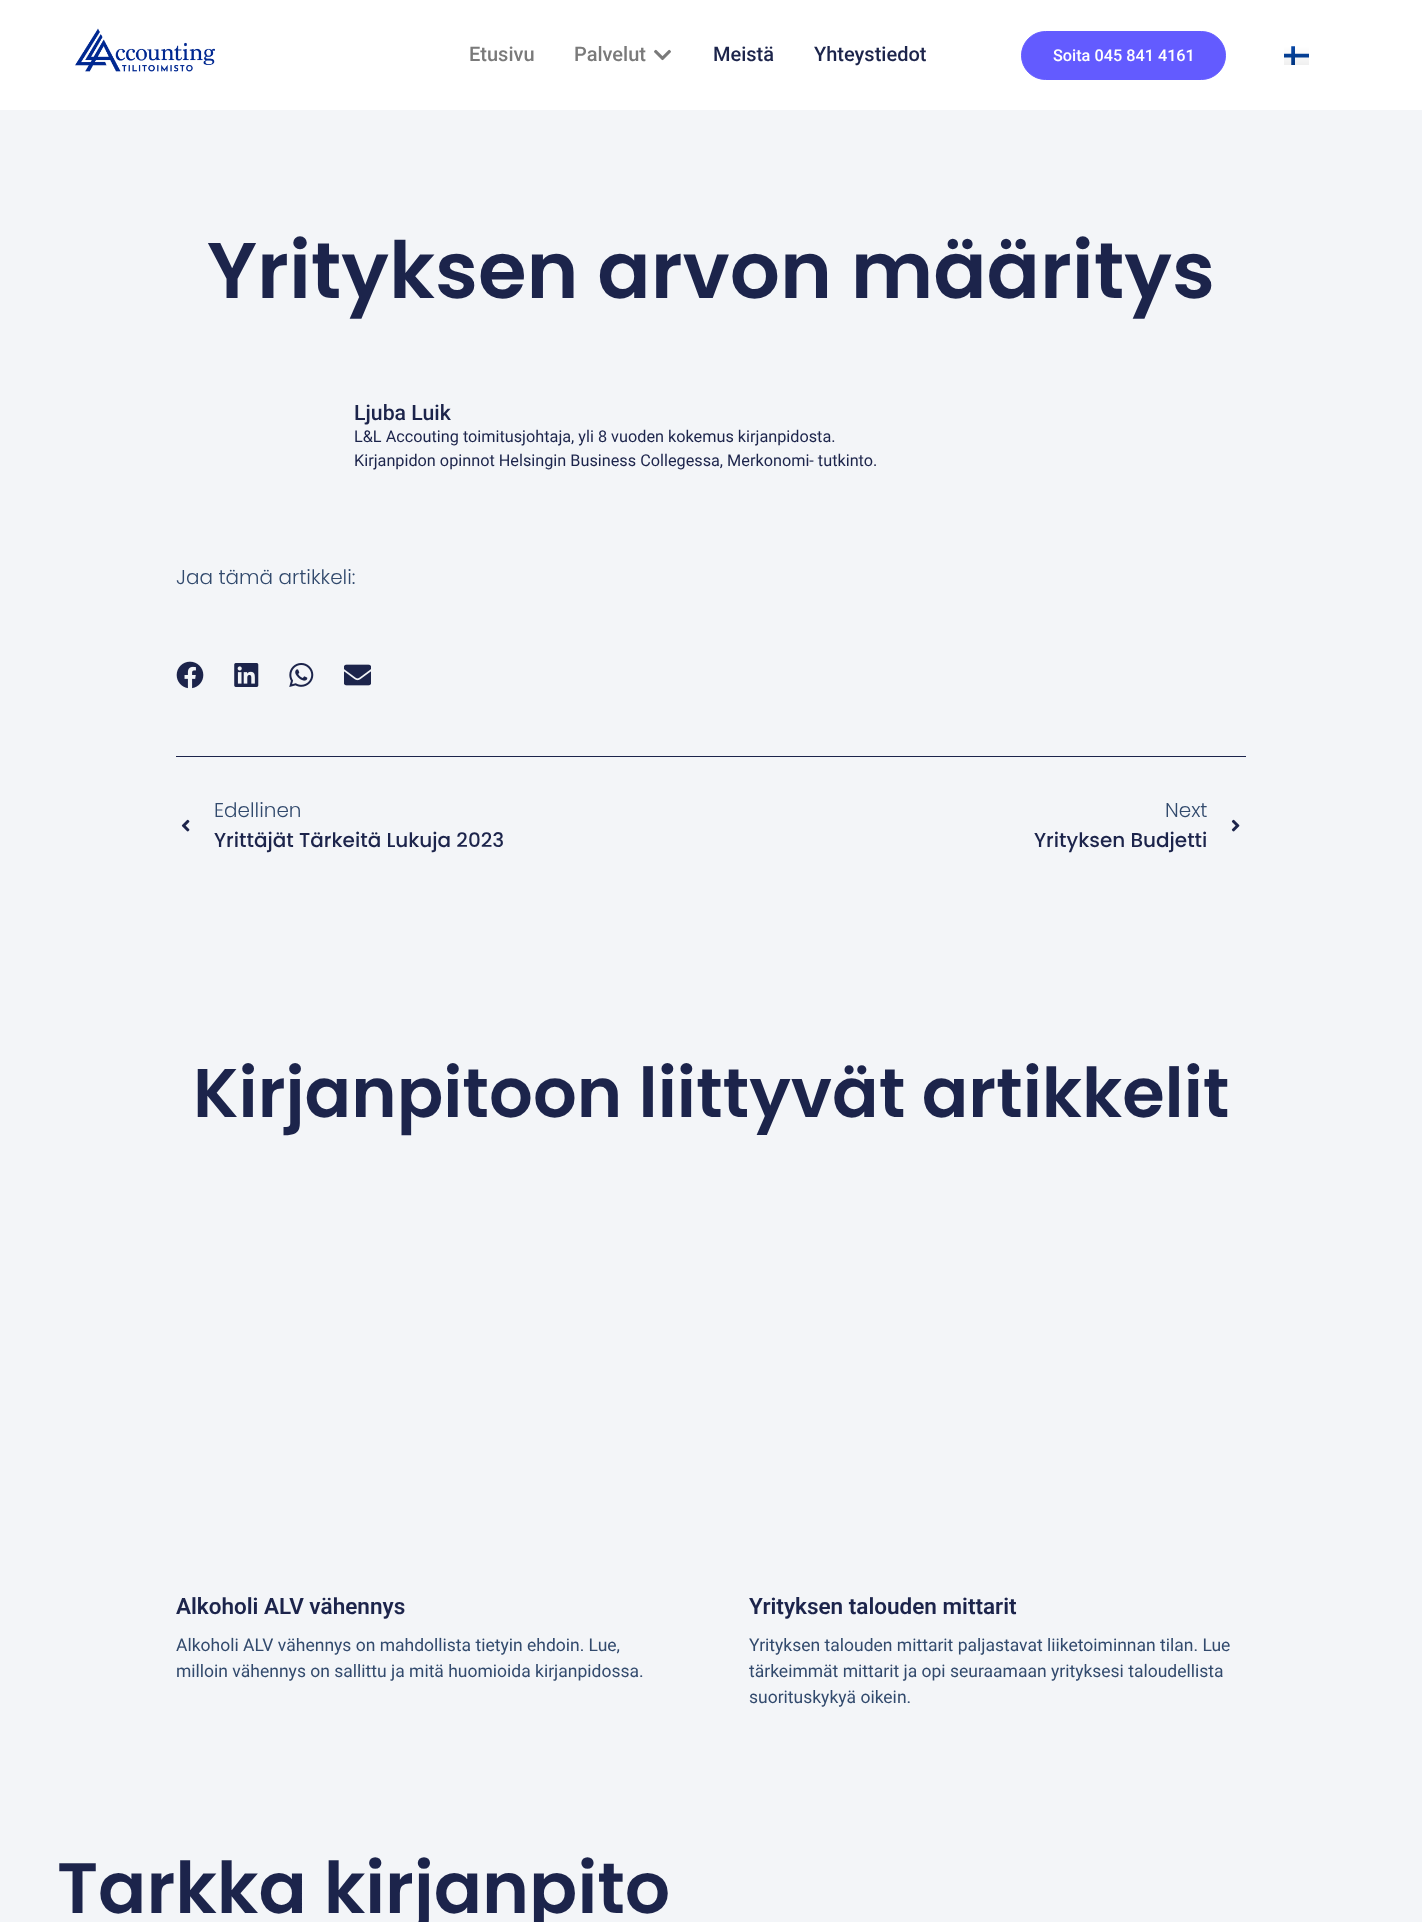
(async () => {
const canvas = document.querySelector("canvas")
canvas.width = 1422
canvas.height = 1922
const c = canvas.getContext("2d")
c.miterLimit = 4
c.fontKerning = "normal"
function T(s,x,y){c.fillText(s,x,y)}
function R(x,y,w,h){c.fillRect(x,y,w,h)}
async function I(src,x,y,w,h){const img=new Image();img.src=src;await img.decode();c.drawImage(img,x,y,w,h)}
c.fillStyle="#f3f5f8"
R(0,0,1422,1922)
c.fillStyle="#fff"
R(0,0,1422,110)
await I("1.png",75,28,140,44)
c.font="500 20px Roboto"
c.fillStyle="#7a7a7a"
T("Etusivu",469,61)
T("Palvelut",574,61)
await I("2.png",654,49,17,12)
c.fillStyle="#1c244b"
T("Meistä",713,61)
T("Yhteystiedot",814,61)
c.fillStyle="#635bff"
c.beginPath()
c.roundRect(1021.5,31.5,204,48,24)
c.fill()
c.strokeStyle="#635bff"
c.stroke()
c.font="500 16.25px Roboto"
c.fillStyle="#fff"
T("Soita 045 841 4161",1053,61)
await I("3.png",1284,46,25,19)
c.font="600 78.75px Poppins"
c.fillStyle="#1c244b"
T("Yrityksen arvon määritys",207,298)
c.font="500 21.25px Roboto"
T("Ljuba Luik",354,420)
c.font="16.25px Roboto"
T("L&L Accouting toimitusjohtaja, yli 8 vuoden kokemus kirjanpidosta.",354,442)
T("Kirjanpidon opinnot Helsingin Business Collegessa, Merkonomi- tutkinto.",354,466)
c.font="300 20px Poppins"
c.fillStyle="#324a6d"
T("Jaa tämä artikkeli:",176,584)
await I("4.png",176,661,28,28)
await I("5.png",234,663,25,24)
await I("6.png",289,663,25,24)
await I("7.png",344,664,27,22)
c.fillStyle="#1c244b"
R(176,756,1070,1)
await I("8.png",181,819,9,13)
c.fillStyle="#324a6d"
T("Edellinen",214,817)
c.font="500 20px Poppins"
c.fillStyle="#1c244b"
T("Yrittäjät Tärkeitä Lukuja 2023",214,847)
c.font="300 20px Poppins"
c.fillStyle="#324a6d"
T("Next",1165,817)
c.font="500 20px Poppins"
c.fillStyle="#1c244b"
T("Yrityksen Budjetti",1034,847)
await I("9.png",1231,819,9,13)
c.font="600 68.75px Poppins"
T("Kirjanpitoon liittyvät artikkelit",193,1117)
c.font="600 22.5px Roboto"
T("Alkoholi ALV vähennys",176,1614)
c.font="17.5px Roboto"
c.fillStyle="#324a6d"
T("Alkoholi ALV vähennys on mahdollista tietyin ehdoin. Lue,",176,1651)
T("milloin vähennys on sallittu ja mitä huomioida kirjanpidossa.",176,1677)
c.font="600 22.5px Roboto"
c.fillStyle="#1c244b"
T("Yrityksen talouden mittarit",749,1614)
c.font="17.5px Roboto"
c.fillStyle="#324a6d"
T("Yrityksen talouden mittarit paljastavat liiketoiminnan tilan. Lue",749,1651)
T("tärkeimmät mittarit ja opi seuraamaan yrityksesi taloudellista",749,1677)
T("suorituskykyä oikein.",749,1703)
c.font="600 71.25px Poppins"
c.fillStyle="#1c244b"
T("Tarkka kirjanpito",57,1913)
})()
